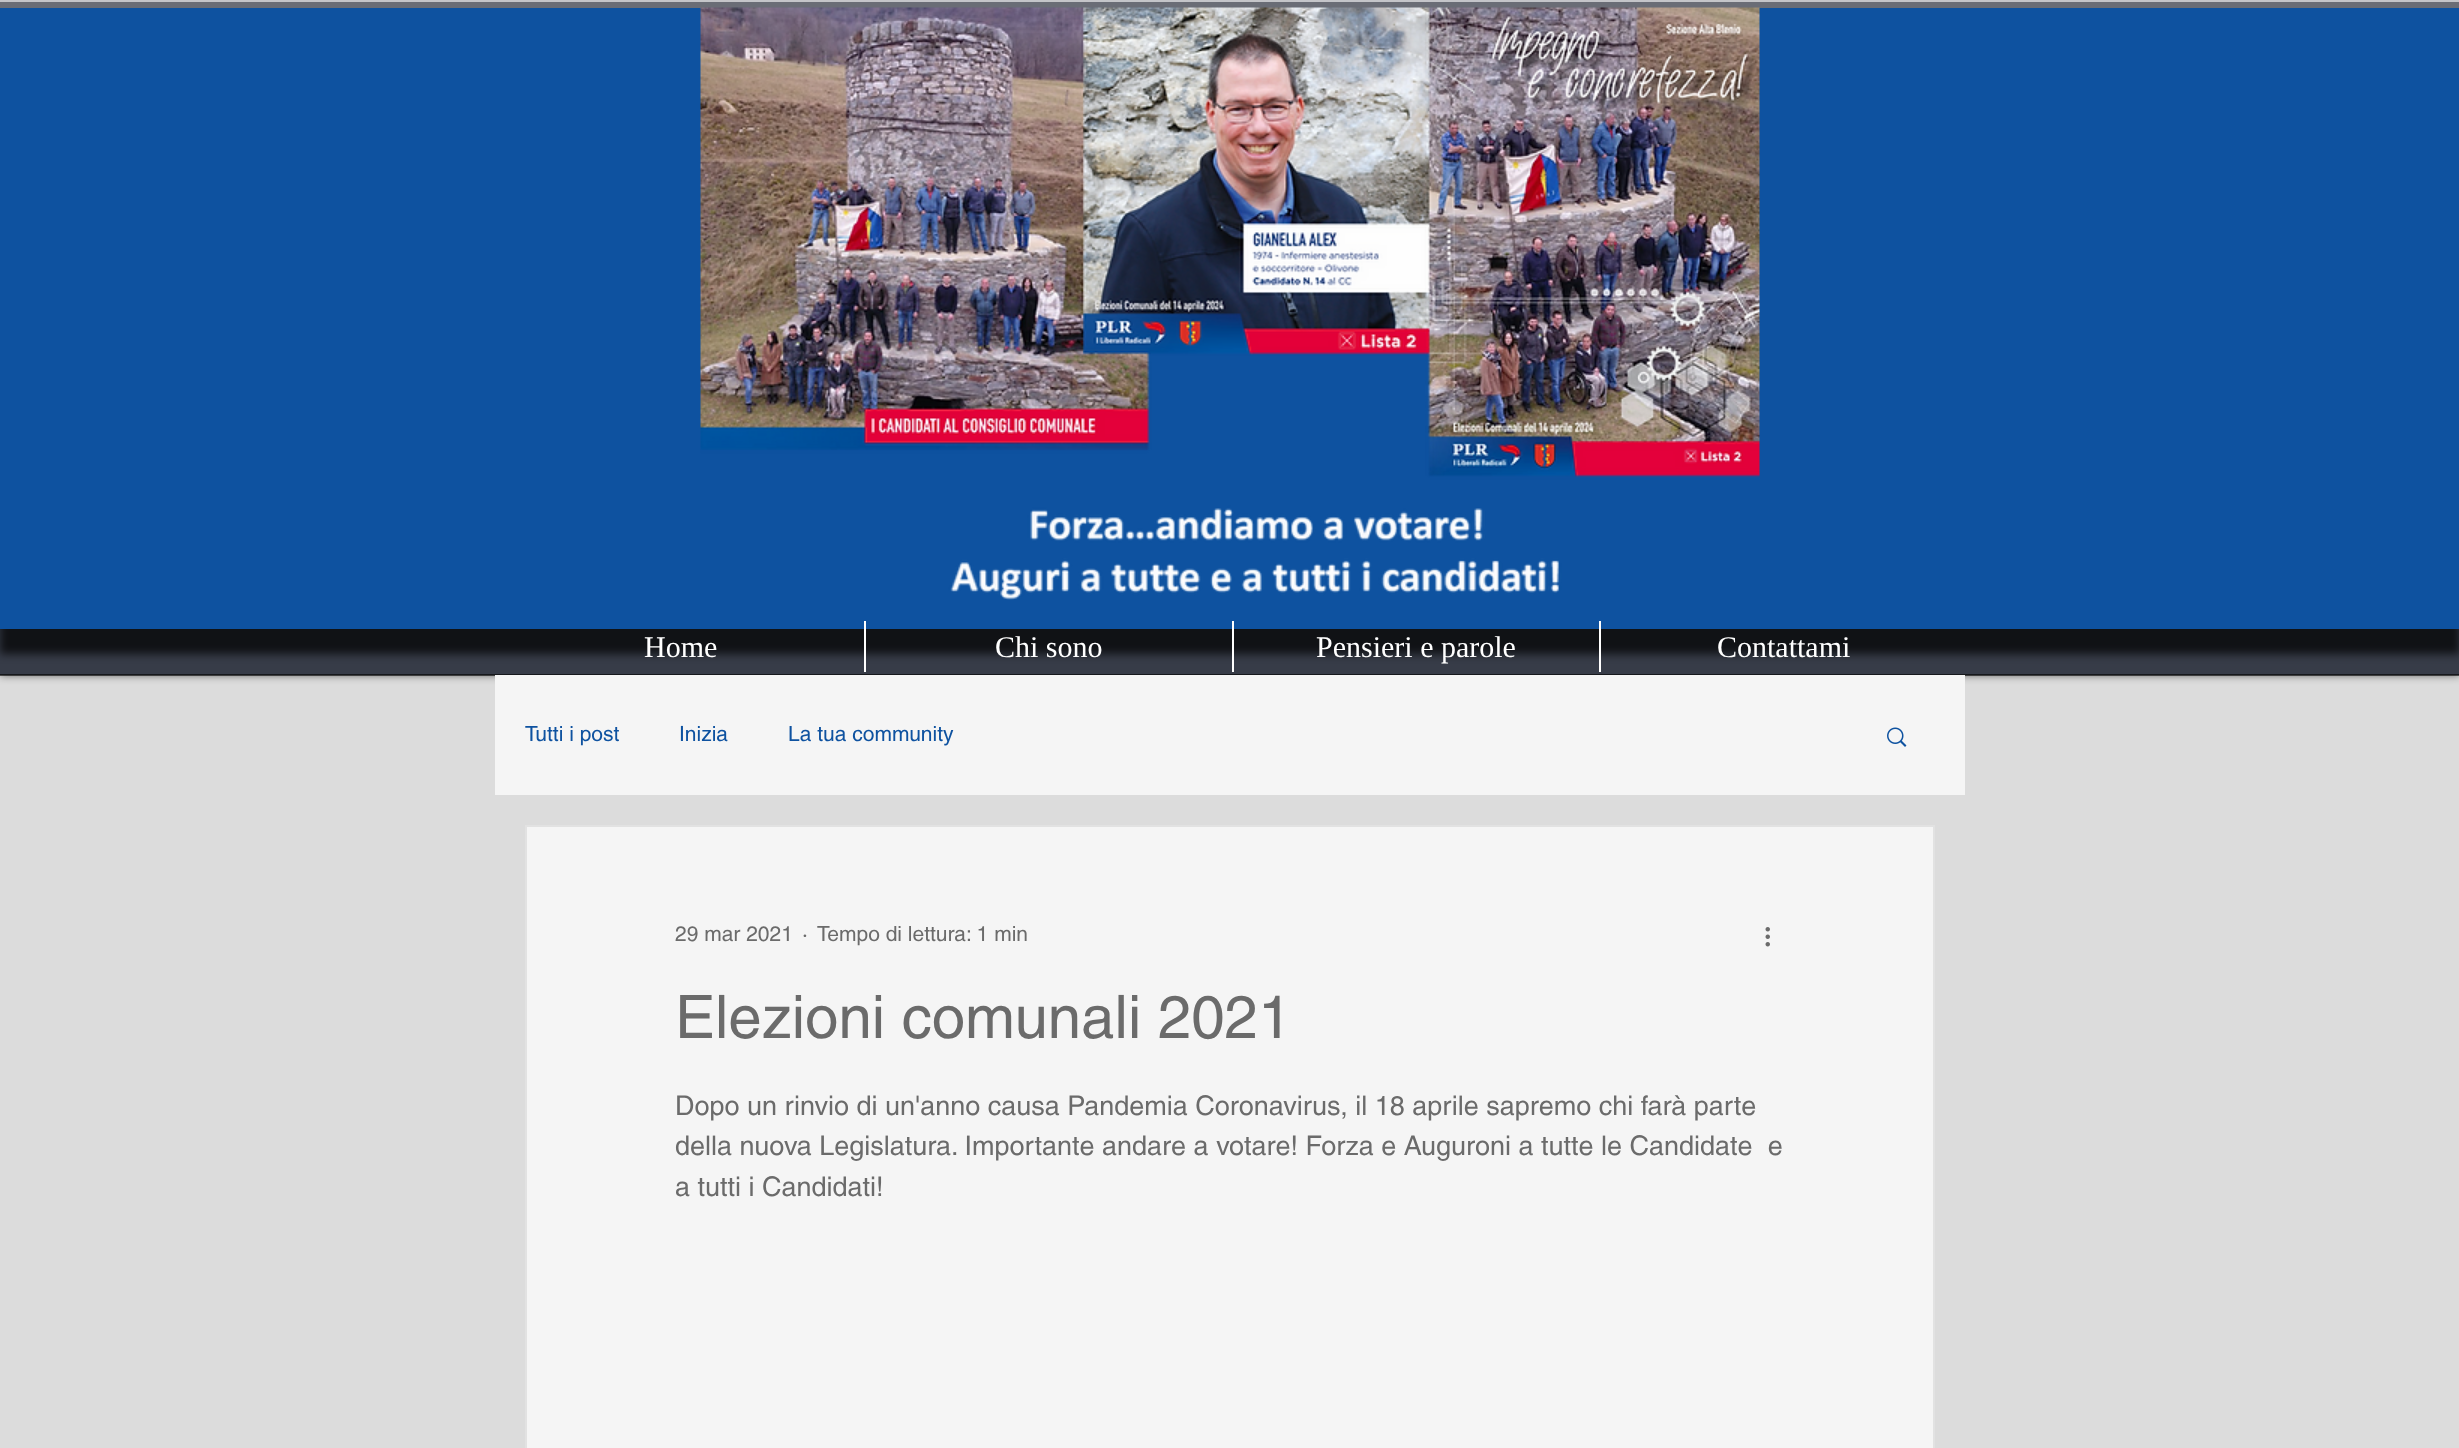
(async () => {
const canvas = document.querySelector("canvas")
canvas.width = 2459
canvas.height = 1448
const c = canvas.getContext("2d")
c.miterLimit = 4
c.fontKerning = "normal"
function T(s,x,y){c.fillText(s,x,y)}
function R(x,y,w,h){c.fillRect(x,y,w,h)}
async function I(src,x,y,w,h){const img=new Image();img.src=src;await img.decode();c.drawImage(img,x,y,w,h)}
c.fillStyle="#dcdcdc"
R(0,0,2459,1448)
c.fillStyle="#00000099"
c.filter="blur(4px)"
c.beginPath()
c.rect(0,0,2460,675)
c.fill()
c.filter="none"
c.fillStyle="#373c48"
R(0,2,2459,673)
await I("1.png",0,2,2459,6)
c.fillStyle="#00000099"
R(0,674,2459,2)
c.fillStyle="#c4c5c9"
R(0,0,2459,2)
c.fillStyle="#000000b3"
c.filter="blur(4px)"
c.beginPath()
c.rect(0,33,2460,621)
c.fill()
c.filter="none"
c.fillStyle="#0e52a0"
R(0,8,2459,621)
await I("2.png",700,7,1060,593)
c.font="30px Liberation Serif"
c.fillStyle="#fff"
T("Home",644,657)
R(864,621,2,51)
T("Chi sono",995,657)
R(1232,621,2,51)
T("Pensieri e parole",1316,657)
R(1599,621,2,51)
T("Contattami",1717,657)
c.fillStyle="#f5f5f5"
R(495,675,1470,120)
c.font="21px helvetica"
c.fillStyle="#0e52a0"
T("Tutti i post",525,741)
T("Inizia",679,741)
T("La tua community",788,741)
await I("3.png",1887,727,20,20)
c.fillStyle="#f5f5f5"
c.beginPath()
c.rect(526,826,1408,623)
c.fill()
c.strokeStyle="#e2e2e2"
c.lineWidth=2
c.stroke()
c.fillStyle="#6b6b6b"
T("29 mar 2021",675,941)
T("·",802,941)
T("Tempo di lettura: 1 min",817,941)
await I("4.png",1765,927,5,20)
c.font="60px helvetica"
T("Elezioni comunali 2021",675,1038)
c.font="27px helvetica"
T("Dopo un rinvio di un'anno causa Pandemia Coronavirus, il 18 aprile sapremo chi farà parte",675,1115)
T("della nuova Legislatura. Importante andare a votare! Forza e Auguroni a tutte le Candidate  e",675,1155)
T("a tutti i Candidati!",675,1196)
})()
